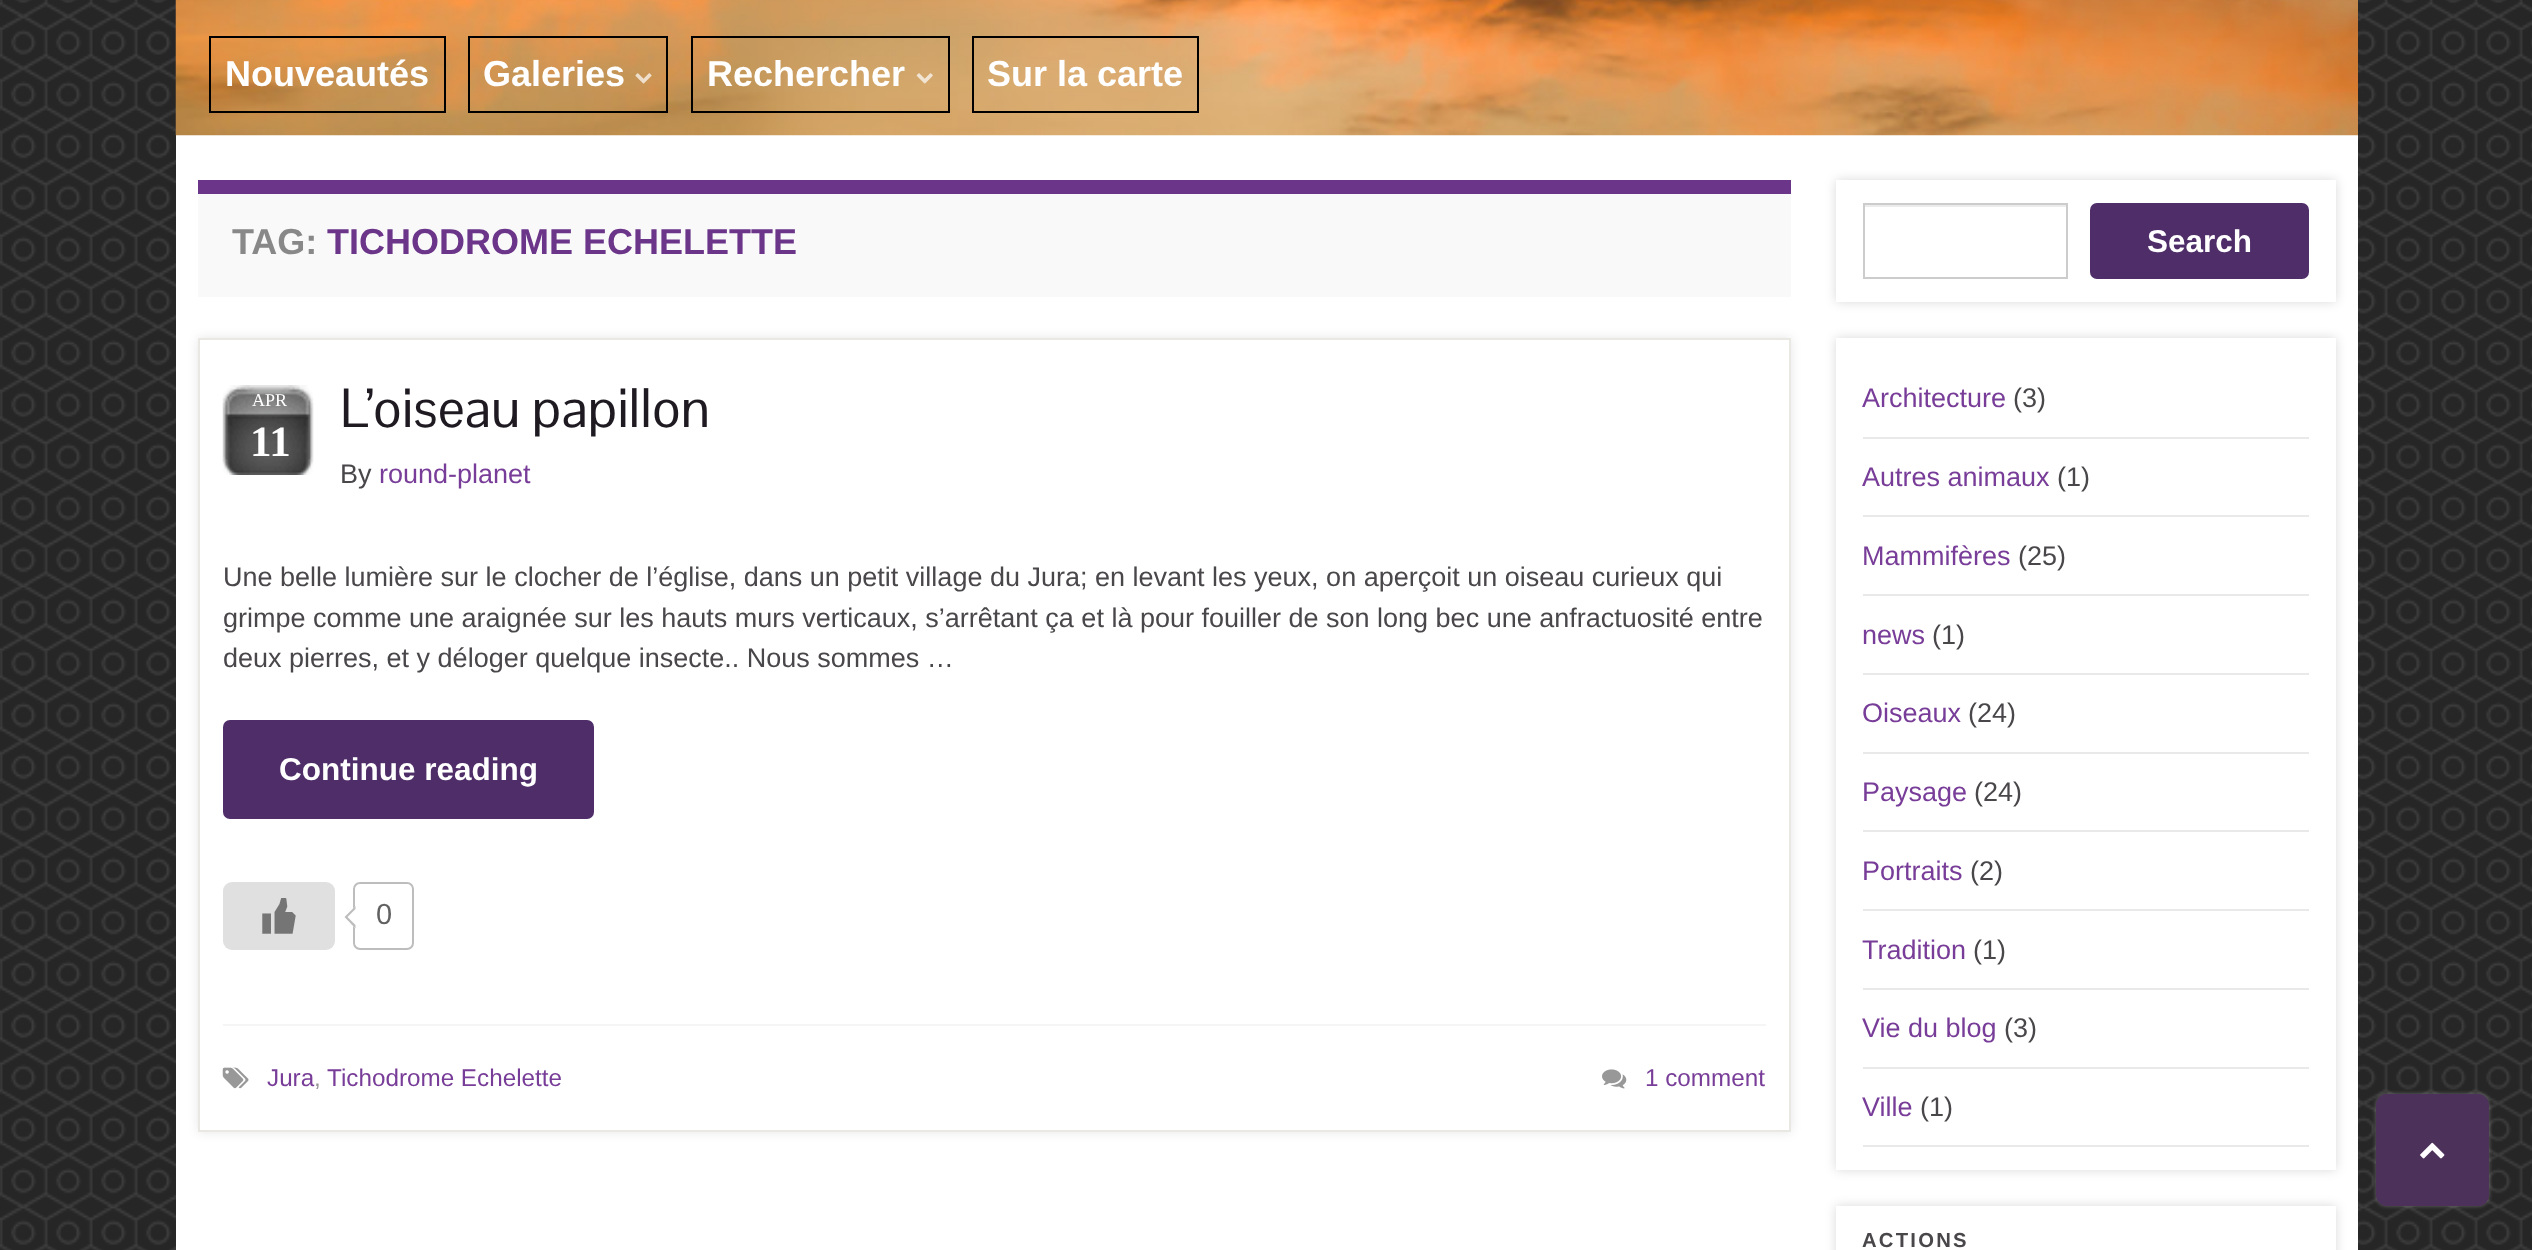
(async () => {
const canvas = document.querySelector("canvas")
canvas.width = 2532
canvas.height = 1250
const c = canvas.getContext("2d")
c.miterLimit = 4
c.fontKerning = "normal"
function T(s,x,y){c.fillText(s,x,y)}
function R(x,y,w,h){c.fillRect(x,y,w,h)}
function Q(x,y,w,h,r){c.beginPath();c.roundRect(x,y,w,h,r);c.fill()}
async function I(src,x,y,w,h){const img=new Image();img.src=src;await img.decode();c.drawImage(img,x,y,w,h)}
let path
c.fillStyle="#fff"
R(0,0,2532,1250)
await I("1.png",0,0,2532,1250)
R(176,135,2182,1115)
await I("2.png",175,0,2183,136)
c.strokeStyle="#000"
c.lineWidth=2
c.strokeRect(210,37,235,75)
c.font="bold 36px Liberation Sans"
T("Nouveautés",225,86)
c.strokeRect(469,37,198,75)
T("Galeries",483,86)
await I("3.png",635,73,17,11)
c.strokeRect(692,37,257,75)
T("Rechercher",707,86)
await I("4.png",916,73,17,11)
c.strokeRect(973,37,225,75)
T("Sur la carte",987,86)
c.fillStyle="#f9f9f9"
R(198,194,1593,103)
c.fillStyle="#6b3589"
R(198,180,1593,14)
c.fillStyle="#888"
T("TAG:",232,254)
c.fillStyle="#6b3589"
T("TICHODROME ECHELETTE",327,254)
c.fillStyle="#0000001a"
c.filter="blur(5.5px)"
c.beginPath()
c.rect(198,338,1593,794)
c.fill()
c.filter="none"
c.fillStyle="#fff"
c.beginPath()
c.rect(199,339,1591,792)
c.fill()
c.strokeStyle="#e9e8e3"
c.stroke()
await I("5.png",222,385,92,90)
c.font="18px Liberation Serif"
T("APR",252,406)
c.font="bold 43px Liberation Serif"
T("11",250,456)
c.font="54px Pontano Sans"
c.fillStyle="#1f1a22"
T("L’oiseau papillon",340,427)
c.font="27px Liberation Sans"
c.fillStyle="#4a474b"
T("By",340,483)
c.fillStyle="#783d98"
T("round-planet",379,483)
c.fillStyle="#4a474b"
T("Une belle lumière sur le clocher de l’église, dans un petit village du Jura; en levant les yeux, on aperçoit un oiseau curieux qui",223,586)
T("grimpe comme une araignée sur les hauts murs verticaux, s’arrêtant ça et là pour fouiller de son long bec une anfractuosité entre",223,627)
T("deux pierres, et y déloger quelque insecte.. Nous sommes …",223,667)
c.fillStyle="#4f2d69"
Q(223,720,371,99,7)
c.font="bold 31.5px Liberation Sans"
c.fillStyle="#fff"
T("Continue reading",279,780)
c.fillStyle="#e0e0e0"
Q(223,882,112,68,9)
await I("6.png",262,898,34,36)
c.beginPath()
c.roundRect(354,883,59,66,6)
c.strokeStyle="#bdbdbd"
c.stroke()
c.fillStyle="#fff"
path = new Path2D("M355.5 906l11 11l-11 11.5l-11-11.5z")
c.fill(path)
c.fillStyle="#bdbdbd"
path = new Path2D("M355.5 928.5l-11-11.5h3l8 8zm-11-11.5l11-11v3l-8 8z")
c.fill(path)
c.font="29px Liberation Sans"
c.fillStyle="#616161"
T("0",376,924)
c.fillStyle="#f5f5f5"
R(223,1024,1543,2)
await I("7.png",222,1067,27,22)
c.font="24.25px Liberation Sans"
c.fillStyle="#783d98"
T("Jura",267,1086)
c.fillStyle="#989898"
T(",",314,1086)
c.fillStyle="#783d98"
T("Tichodrome Echelette",327,1086)
await I("8.png",1602,1069,25,20)
T("1 comment",1645,1086)
c.fillStyle="#00000026"
c.filter="blur(5.5px)"
c.beginPath()
c.rect(1836,180,500,122)
c.fill()
c.filter="none"
c.fillStyle="#fff"
R(1836,180,500,122)
c.fillStyle="#ececec"
R(1865,205,201,2)
c.strokeStyle="#ccc"
c.strokeRect(1864,204,203,74)
c.fillStyle="#4f2d69"
Q(2090,203,219,76,7)
c.font="bold 31.5px Liberation Sans"
c.fillStyle="#fff"
T("Search",2147,252)
c.fillStyle="#00000026"
c.filter="blur(5.5px)"
c.beginPath()
c.rect(1836,338,500,832)
c.fill()
c.filter="none"
c.fillStyle="#fff"
R(1836,338,500,832)
c.fillStyle="#e9e9e9"
R(1863,437,446,2)
c.font="27px Liberation Sans"
c.fillStyle="#783d98"
T("Architecture",1862,407)
c.fillStyle="#4a474b"
T("(3)",2013,407)
c.fillStyle="#e9e9e9"
R(1863,515,446,2)
c.fillStyle="#783d98"
T("Autres animaux",1862,486)
c.fillStyle="#4a474b"
T("(1)",2057,486)
c.fillStyle="#e9e9e9"
R(1863,594,446,2)
c.fillStyle="#783d98"
T("Mammifères",1862,565)
c.fillStyle="#4a474b"
T("(25)",2018,565)
c.fillStyle="#e9e9e9"
R(1863,673,446,2)
c.fillStyle="#783d98"
T("news",1862,644)
c.fillStyle="#4a474b"
T("(1)",1932,644)
c.fillStyle="#e9e9e9"
R(1863,752,446,2)
c.fillStyle="#783d98"
T("Oiseaux",1862,722)
c.fillStyle="#4a474b"
T("(24)",1968,722)
c.fillStyle="#e9e9e9"
R(1863,830,446,2)
c.fillStyle="#783d98"
T("Paysage",1862,801)
c.fillStyle="#4a474b"
T("(24)",1974,801)
c.fillStyle="#e9e9e9"
R(1863,909,446,2)
c.fillStyle="#783d98"
T("Portraits",1862,880)
c.fillStyle="#4a474b"
T("(2)",1970,880)
c.fillStyle="#e9e9e9"
R(1863,988,446,2)
c.fillStyle="#783d98"
T("Tradition",1862,959)
c.fillStyle="#4a474b"
T("(1)",1973,959)
c.fillStyle="#e9e9e9"
R(1863,1067,446,2)
c.fillStyle="#783d98"
T("Vie du blog",1862,1037)
c.fillStyle="#4a474b"
T("(3)",2004,1037)
c.fillStyle="#e9e9e9"
R(1863,1145,446,2)
c.fillStyle="#783d98"
T("Ville",1862,1116)
c.fillStyle="#4a474b"
T("(1)",1920,1116)
c.fillStyle="#00000026"
c.filter="blur(5.5px)"
c.beginPath()
c.rect(1836,1206,500,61)
c.fill()
c.filter="none"
c.fillStyle="#fff"
R(1836,1206,500,44)
c.letterSpacing="2.25px"
c.font="bold 20.25px Liberation Sans"
c.fillStyle="#4a474b"
T("ACTIONS",1862,1247)
c.fillStyle="#ffffff4d"
c.filter="blur(2px)"
c.beginPath()
c.roundRect(2376,1094,113,112,11)
c.fill()
c.filter="none"
c.fillStyle="#4c315a"
Q(2376,1094,113,112,11)
await I("9.png",2420,1142,25,17)
})()
